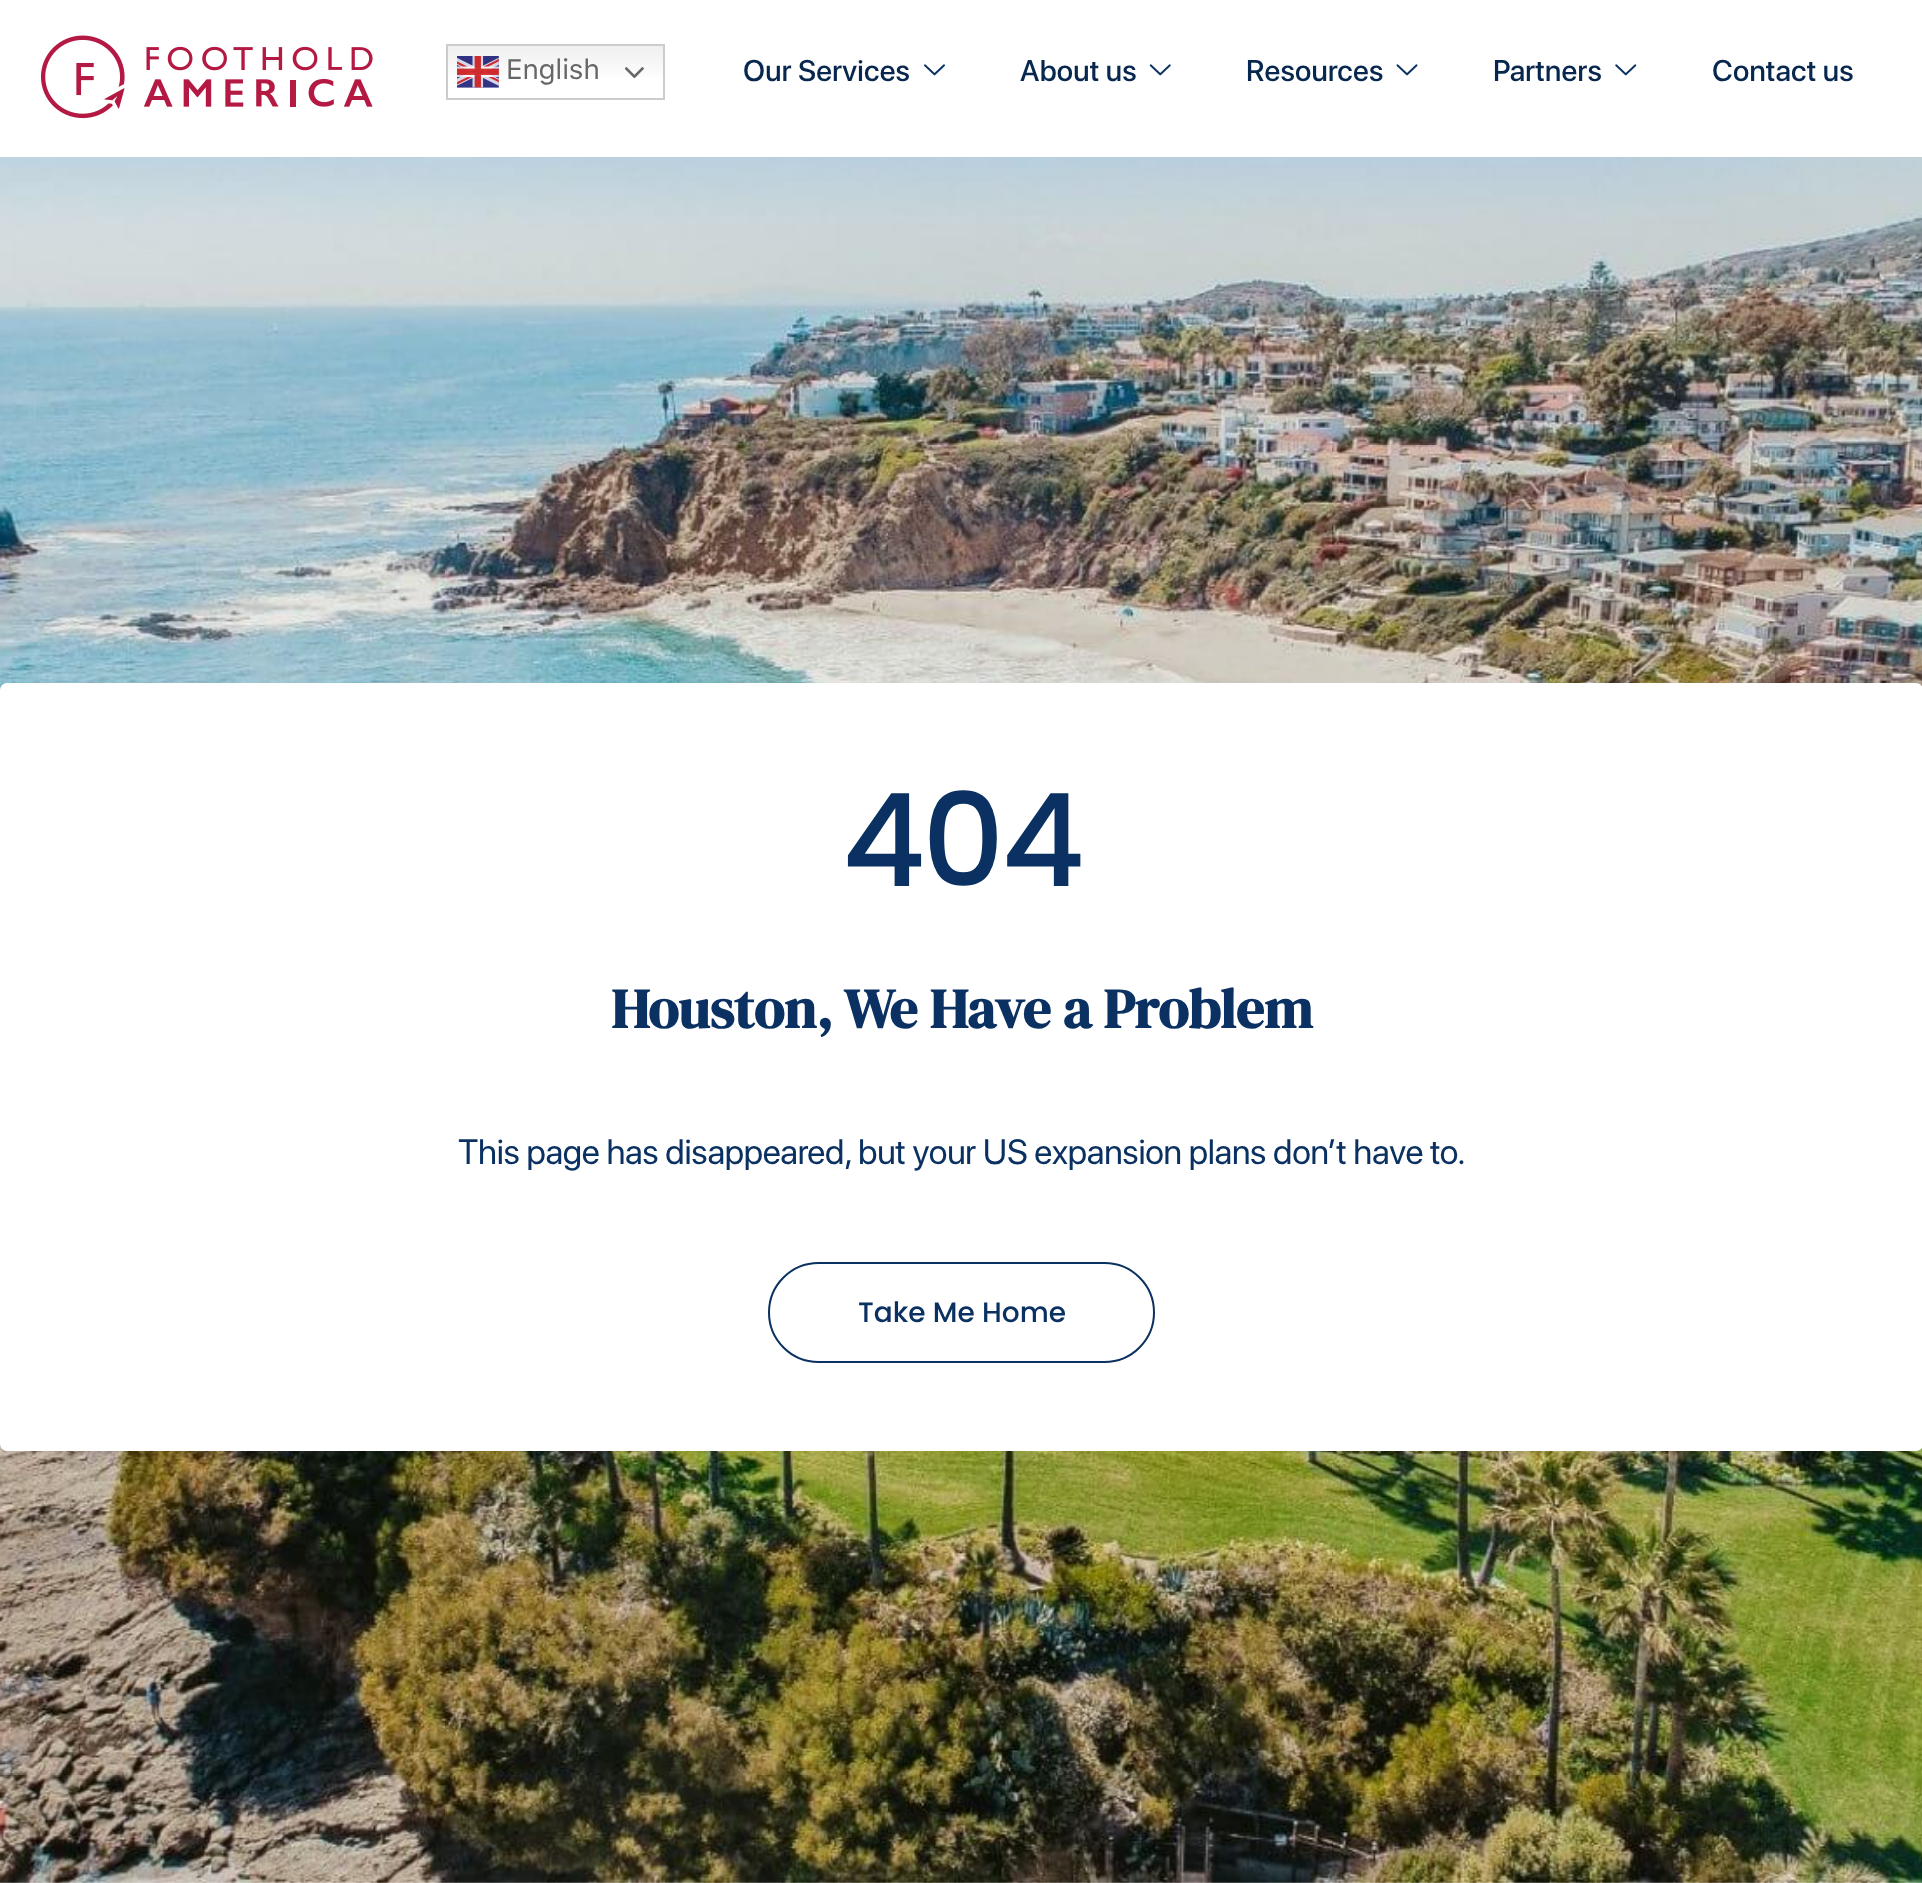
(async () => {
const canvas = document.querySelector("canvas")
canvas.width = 1922
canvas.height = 1883
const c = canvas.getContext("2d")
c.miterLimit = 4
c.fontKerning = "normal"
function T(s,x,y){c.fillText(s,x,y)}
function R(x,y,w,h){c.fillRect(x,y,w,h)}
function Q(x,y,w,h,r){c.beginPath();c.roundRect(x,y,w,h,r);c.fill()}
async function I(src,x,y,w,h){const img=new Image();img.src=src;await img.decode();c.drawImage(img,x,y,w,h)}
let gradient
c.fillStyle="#fff"
R(0,0,1922,1883)
await I("1.png",40,35,333,84)
gradient = c.createLinearGradient(556,44,556,100)
gradient.addColorStop(0,"#efefef")
gradient.addColorStop(.7,"#fff")
c.fillStyle = gradient
R(448,46,215,31)
c.strokeStyle="#ccc"
c.lineWidth=2
c.strokeRect(447,45,217,54)
await I("2.png",457,56,42,32)
c.letterSpacing="-0.25px"
c.font="28px SF Pro Text"
c.fillStyle="#666"
T("English",506,79)
await I("3.png",625,67,19,12)
c.letterSpacing="0.25px"
c.font="500 29.75px SF Pro Display"
c.fillStyle="#08274e"
T("Our Services",743,81)
await I("4.png",924,64,21,12)
T("About us",1020,81)
await I("5.png",1149,64,22,12)
T("Resources",1246,81)
await I("6.png",1396,64,22,12)
T("Partners",1493,81)
await I("7.png",1615,64,22,12)
T("Contact us",1712,81)
await I("8.png",0,157,1922,1726)
c.fillStyle="#fff"
Q(0,683,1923,768,7)
c.letterSpacing="-3.5px"
c.font="500 129px Poppins"
c.fillStyle="#0a3161"
T("404",842,886)
c.letterSpacing="-0.25px"
c.font="bold 56px DM Serif Display"
T("Houston, We Have a Problem",611,1028)
c.font="35px SF Pro Display"
T("This page has disappeared, but your US expansion plans don’t have to.",458,1164)
c.beginPath()
c.roundRect(769,1263,385,99,49.5)
c.strokeStyle="#0a3161"
c.stroke()
c.letterSpacing="0px"
c.font="500 28px Poppins"
T("Take Me Home",858,1322)
})()
